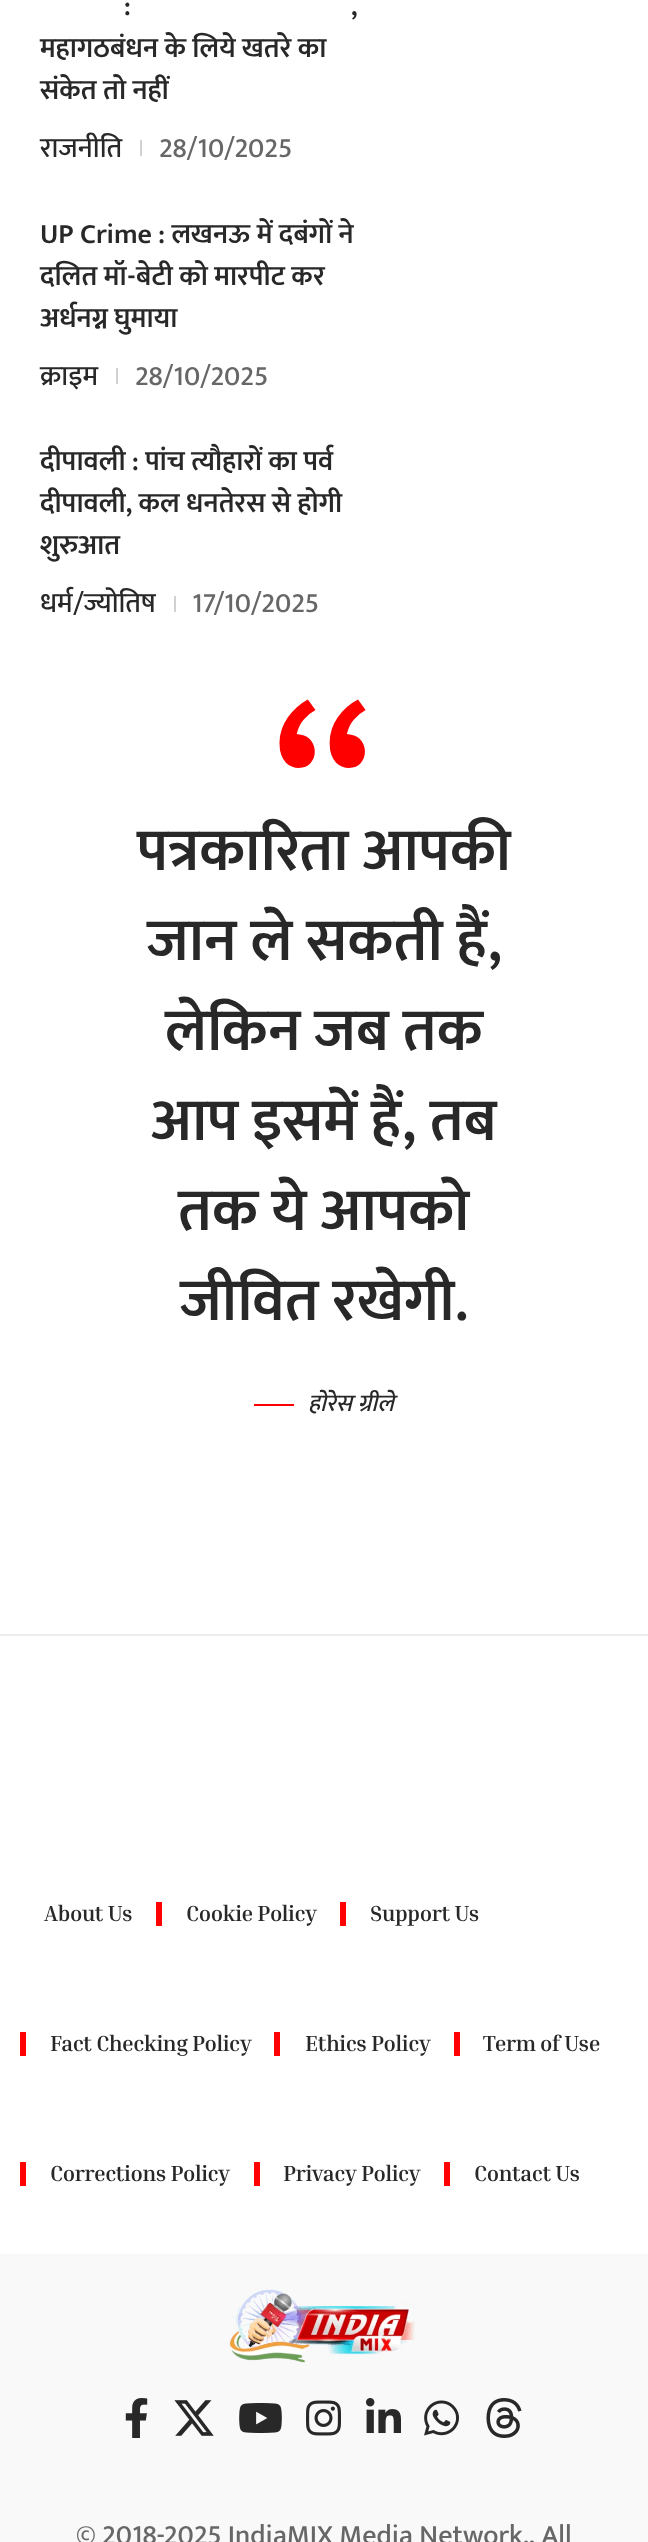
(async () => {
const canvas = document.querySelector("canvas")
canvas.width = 648
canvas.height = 2542
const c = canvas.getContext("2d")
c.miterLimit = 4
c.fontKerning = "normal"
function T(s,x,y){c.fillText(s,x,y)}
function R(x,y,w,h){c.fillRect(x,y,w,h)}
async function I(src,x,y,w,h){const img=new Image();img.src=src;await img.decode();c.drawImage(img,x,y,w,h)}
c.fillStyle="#fff"
R(0,0,648,2542)
c.font="600 28px Mukta"
c.fillStyle="#282828"
T(":",124,15)
T(",",351,15)
T("महागठबंधन के लिये खतरे का",40,57)
T("संकेत तो नहीं",40,99)
c.font="500 28px Mukta"
T("राजनीति",40,157)
c.fillStyle="#d1d1d1"
R(140,140,2,16)
c.fillStyle="#676767"
T("28/10/2025",159,157)
c.font="600 28px Mukta"
c.fillStyle="#282828"
T("UP Crime : लखनऊ में दबंगों ने",40,243)
T("दलित मॉ-बेटी को मारपीट कर",40,285)
T("अर्धनग्न घुमाया",40,327)
c.font="500 28px Mukta"
T("क्राइम",40,385)
c.fillStyle="#d1d1d1"
R(116,368,2,16)
c.fillStyle="#676767"
T("28/10/2025",135,385)
c.font="600 28px Mukta"
c.fillStyle="#282828"
T("दीपावली : पांच त्यौहारों का पर्व",40,470)
T("दीपावली, कल धनतेरस से होगी",40,512)
T("शुरुआत",40,554)
c.font="500 28px Mukta"
T("धर्म/ज्योतिष",40,612)
c.fillStyle="#d1d1d1"
R(174,596,2,16)
c.fillStyle="#676767"
T("17/10/2025",192,612)
c.font="500 240px Mukta"
c.fillStyle="#f00"
T("“",273,880)
c.font="600 60px Mukta"
c.fillStyle="#282828"
T("पत्रकारिता आपकी",137,870)
T("जान ले सकती हैं,",147,960)
T("लेकिन जब तक",165,1050)
T("आप इसमें हैं, तब",151,1140)
T("तक ये आपको",178,1230)
T("जीवित रखेगी.",180,1320)
c.fillStyle="#f00"
R(254,1404,40,2)
c.font="italic 500 24px Mukta"
c.fillStyle="#282828"
T("होरेस ग्रीले",308,1411)
c.fillStyle="#ededed"
R(0,1634,648,2)
c.letterSpacing="-0.4px"
c.font="bold 22px Inria Serif"
c.fillStyle="#282828"
T("About Us",44,1921)
c.fillStyle="#ff0101"
R(156,1902,6,24)
c.fillStyle="#282828"
T("Cookie Policy",186,1921)
c.fillStyle="#ff0101"
R(340,1902,6,24)
c.fillStyle="#282828"
T("Support Us",370,1921)
c.fillStyle="#ff0101"
R(20,2032,6,24)
c.fillStyle="#282828"
T("Fact Checking Policy",50,2051)
c.fillStyle="#ff0101"
R(274,2032,6,24)
c.fillStyle="#282828"
T("Ethics Policy",305,2051)
c.fillStyle="#ff0101"
R(454,2032,6,24)
c.fillStyle="#282828"
T("Term of Use",483,2051)
c.fillStyle="#ff0101"
R(20,2162,6,24)
c.fillStyle="#282828"
T("Corrections Policy",50,2181)
c.fillStyle="#ff0101"
R(254,2162,6,24)
c.fillStyle="#282828"
T("Privacy Policy",283,2181)
c.fillStyle="#ff0101"
R(444,2162,6,24)
c.fillStyle="#282828"
T("Contact Us",474,2181)
c.fillStyle="#f9f9f9"
R(0,2254,648,288)
await I("1.png",229,2288,186,75)
await I("2.png",125,2398,23,40)
await I("3.png",174,2400,40,36)
await I("4.png",239,2403,43,30)
await I("5.png",306,2400,35,36)
await I("6.png",366,2398,35,35)
await I("7.png",424,2400,35,36)
await I("8.png",486,2398,36,40)
c.letterSpacing="0px"
c.font="500 28px Mukta"
c.fillStyle="#676767"
T("© 2018-2025 IndiaMIX Media Network., All",76,2544)
})()
